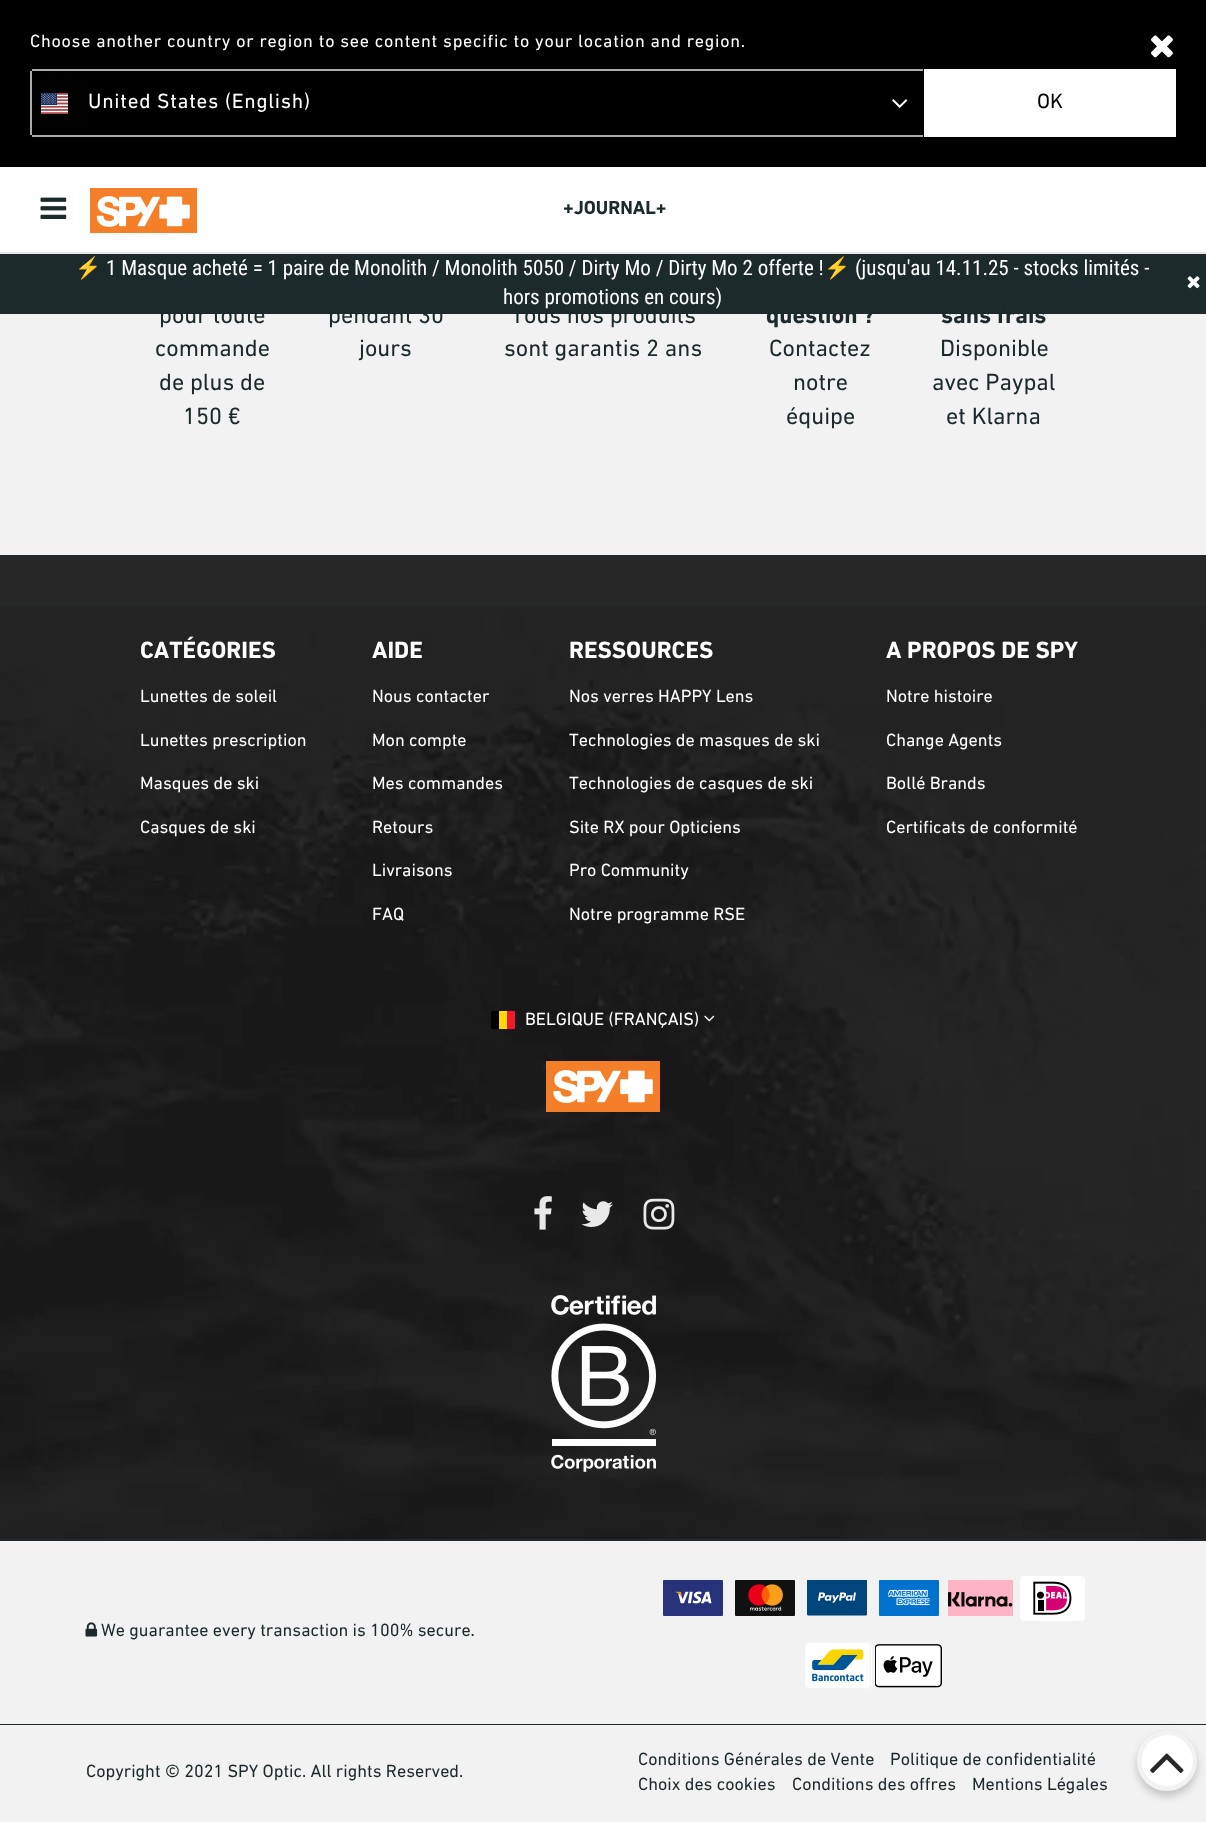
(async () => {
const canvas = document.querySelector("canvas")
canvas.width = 1206
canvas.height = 1822
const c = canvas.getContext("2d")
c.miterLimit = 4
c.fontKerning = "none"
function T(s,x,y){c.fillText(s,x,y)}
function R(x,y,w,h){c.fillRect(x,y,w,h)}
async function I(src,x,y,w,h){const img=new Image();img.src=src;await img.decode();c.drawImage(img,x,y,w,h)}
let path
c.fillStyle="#272727"
R(0,0,1206,1822)
c.fillStyle="#000"
R(0,0,1206,167)
c.letterSpacing="0.75px"
c.font="18px DIN Next"
c.fillStyle="#fff"
T("Choose another country or region to see content specific to your location and region.",30,47)
await I("1.png",1151,35,22,23)
c.fillStyle="#ababab"
R(32,69,891,2)
R(32,135,891,2)
R(30,71,2,64)
await I("2.png",41,93,27,21)
c.font="21px DIN Next"
c.fillStyle="#fff"
T("United States (English)",88,108)
await I("3.png",892,99,16,9)
R(924,69,252,68)
c.letterSpacing="0px"
c.fillStyle="#000"
T("OK",1037,108)
c.fillStyle="#fff"
R(0,167,1206,85)
await I("4.png",40,197,27,22)
await I("5.png",90,188,107,45)
c.font="bold 19.25px DIN Next"
c.fillStyle="#1d2a2b"
T("+JOURNAL+",563,214)
c.fillStyle="#e6e6e6"
R(0,252,1206,2)
c.fillStyle="#1d2a2b"
R(0,254,1206,60)
c.font="21px Noto Color Emoji"
c.fillStyle="#fff"
T("⚡",75,275)
c.font="21px Roboto Condensed"
T("1 Masque acheté = 1 paire de Monolith / Monolith 5050 / Dirty Mo / Dirty Mo 2 offerte !",106,275)
c.font="21px Noto Color Emoji"
T("⚡",824,275)
c.font="21px Roboto Condensed"
T("(jusqu'au 14.11.25 - stocks limités -",855,275)
T("hors promotions en cours)",503,304)
await I("6.png",1187,276,13,13)
c.fillStyle="#f2f2f2"
R(0,314,1206,241)
c.fillStyle="#1d2a2b"
R(0,555,1206,2)
c.font="24px DIN Next"
T("pour toute",159,323)
T("commande",155,356)
T("de plus de",159,390)
T("150 €",183,424)
T("pendant 30",328,323)
T("jours",359,356)
T("Tous nos produits",511,323)
T("sont garantis 2 ans",504,356)
c.font="bold 24px DIN Next"
T("question ?",766,323)
c.font="24px DIN Next"
T("Contactez",769,356)
T("notre",793,390)
T("équipe",786,424)
c.font="bold 24px DIN Next"
T("sans frais",941,323)
c.font="24px DIN Next"
T("Disponible",940,356)
T("avec Paypal",932,390)
T("et Klarna",946,424)
R(0,605,1206,1)
await I("7.png",0,605,1206,934)
R(0,1539,1206,2)
c.font="bold 24px DIN Next"
c.fillStyle="#fff"
T("CATÉGORIES",140,658)
c.font="18px DIN Next"
T("Lunettes de soleil",140,702)
T("Lunettes prescription",140,746)
T("Masques de ski",140,789)
T("Casques de ski",140,833)
c.font="bold 24px DIN Next"
T("AIDE",372,658)
c.font="18px DIN Next"
T("Nous contacter",372,702)
T("Mon compte",372,746)
T("Mes commandes",372,789)
T("Retours",372,833)
T("Livraisons",372,876)
T("FAQ",372,920)
c.font="bold 24px DIN Next"
T("RESSOURCES",569,658)
c.font="18px DIN Next"
T("Nos verres HAPPY Lens",569,702)
T("Technologies de masques de ski",569,746)
T("Technologies de casques de ski",569,789)
T("Site RX pour Opticiens",569,833)
T("Pro Community",569,876)
T("Notre programme RSE",569,920)
c.font="bold 24px DIN Next"
T("A PROPOS DE SPY",886,658)
c.font="18px DIN Next"
T("Notre histoire",886,702)
T("Change Agents",886,746)
T("Bollé Brands",886,789)
T("Certificats de conformité",886,833)
c.fillStyle="#000"
R(491,1011,8,18)
c.fillStyle="#ffd90c"
R(499,1011,8,18)
c.fillStyle="#f31830"
R(507,1011,8,18)
c.fillStyle="#fff"
T("BELGIQUE (FRANÇAIS)",525,1025)
await I("8.png",704,1015,11,7)
await I("9.png",546,1061,114,51)
await I("10.png",534,1196,18,34)
await I("11.png",581,1201,32,26)
await I("12.png",643,1198,32,32)
await I("13.png",551,1295,106,177)
c.fillStyle="#1d2a2b"
R(0,1724,1206,1)
c.fillStyle="#f2f2f2"
R(0,1541,1206,183)
await I("14.png",85,1622,13,15)
c.fillStyle="#1d2a2b"
T("We guarantee every transaction is 100% secure.",101,1636)
await I("15.png",663,1580,60,36)
await I("16.png",735,1580,60,36)
await I("17.png",807,1580,60,36)
await I("18.png",879,1580,60,36)
await I("19.png",948,1580,65,36)
await I("20.png",1020,1576,65,45)
await I("21.png",805,1642,67,47)
await I("22.png",875,1644,67,44)
c.fillStyle="#f2f2f2"
R(0,1725,1206,97)
c.fillStyle="#1d2a2b"
T("Copyright © 2021 SPY Optic. All rights Reserved.",86,1777)
T("Conditions Générales de Vente",638,1765)
T("Politique de confidentialité",890,1765)
T("Choix des cookies",638,1790)
T("Conditions des offres",792,1790)
T("Mentions Légales",972,1790)
c.save()
path = new Path2D("M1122 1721h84v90h-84zm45 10c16.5 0 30 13.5 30 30c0 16.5-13.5 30-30 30c-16.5 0-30-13.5-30-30c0-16.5 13.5-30 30-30z")
c.clip(path,"evenodd")
c.fillStyle="#00000033"
c.filter="blur(4.5px)"
c.beginPath()
c.roundRect(1137,1736,60,60,30)
c.fill()
c.filter="none"
c.restore()
c.fillStyle="#fff"
path = new Path2D("M1189 1748c3 4 4 9 4 14c-2 25-35 33-48 11c-3-4-4-9-3-14c1-25 35-33 47-11z")
c.fill(path)
await I("23.png",1150,1753,34,20)
})()
